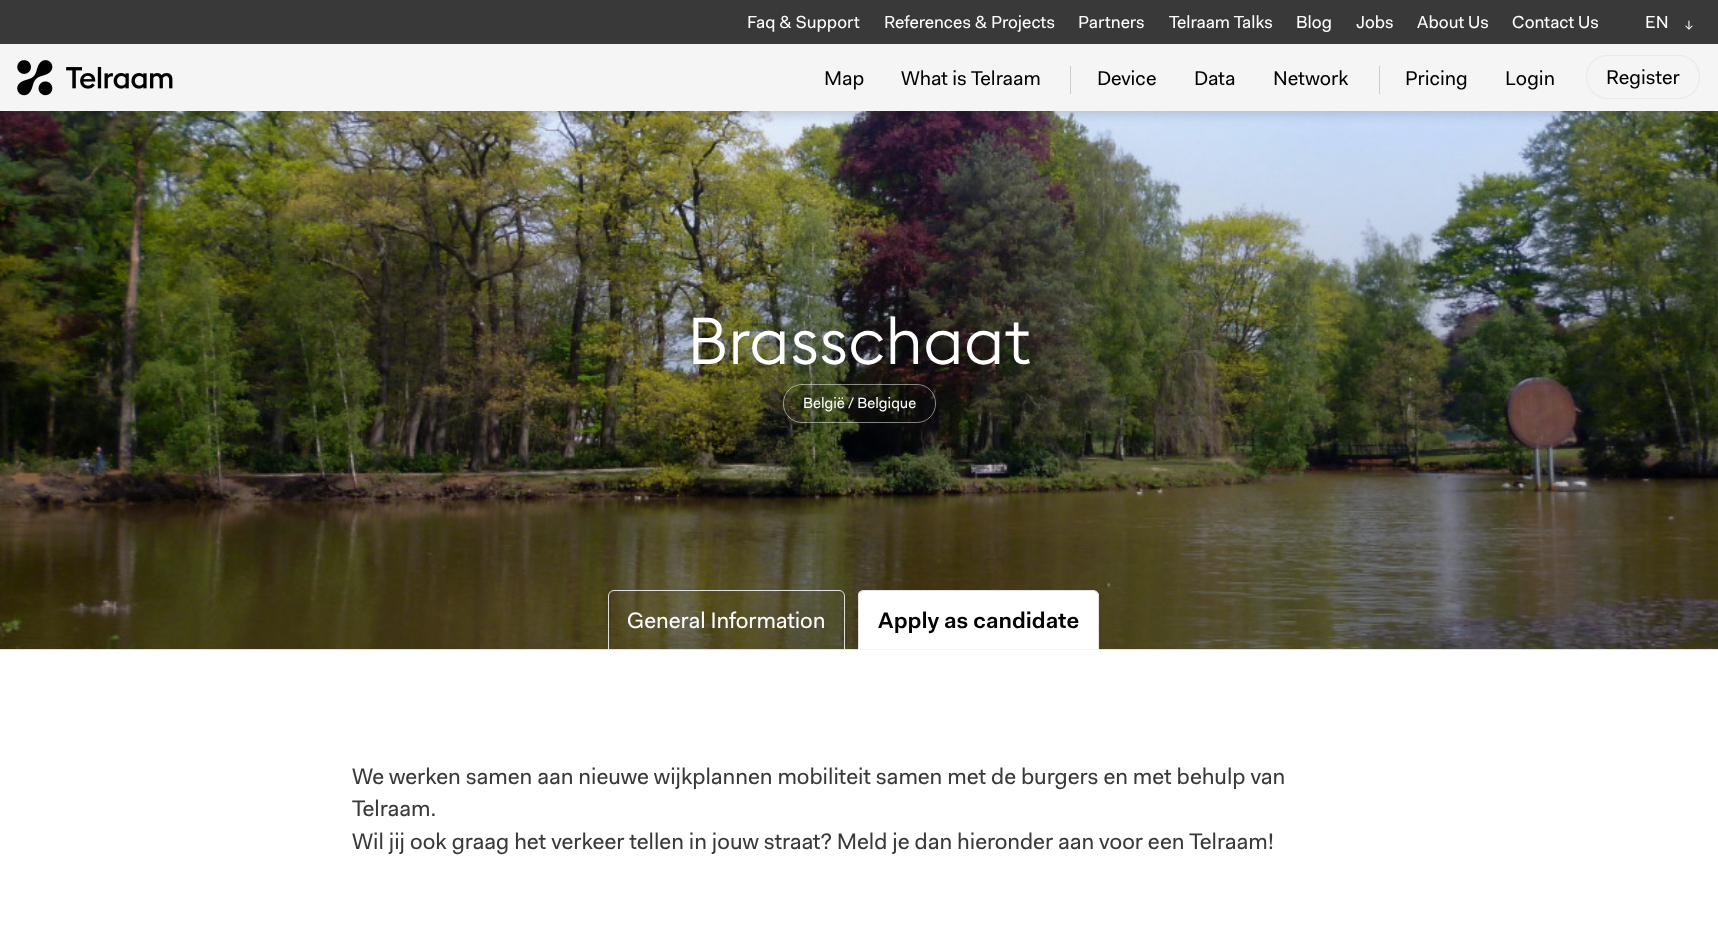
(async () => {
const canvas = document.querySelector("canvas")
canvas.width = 1718
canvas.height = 950
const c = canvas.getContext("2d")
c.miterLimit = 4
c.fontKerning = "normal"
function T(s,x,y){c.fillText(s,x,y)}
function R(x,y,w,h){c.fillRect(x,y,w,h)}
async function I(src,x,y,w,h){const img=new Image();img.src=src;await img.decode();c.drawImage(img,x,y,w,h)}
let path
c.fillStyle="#fff"
R(0,0,1718,950)
c.fillStyle="#393939"
R(0,0,1718,44)
c.font="17.5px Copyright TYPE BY"
c.fillStyle="#fff"
T("Faq & Support",747,28)
T("References & Projects",884,28)
T("Partners",1078,28)
T("Telraam Talks",1169,28)
T("Blog",1296,28)
T("Jobs",1356,28)
T("About Us",1417,28)
T("Contact Us",1512,28)
T("EN",1645,28)
c.font="15px Copyright TYPE BY"
T("↓",1684,29)
await I("2.png",0,111,1718,538)
c.fillStyle="#00000026"
c.filter="blur(6px)"
c.beginPath()
c.rect(-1,54,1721,60)
c.fill()
c.filter="none"
c.fillStyle="#f5f5f5"
R(0,44,805,67)
await I("1.png",17,60,156,36)
R(805,44,78,67)
c.font="20px Copyright TYPE BY"
c.fillStyle="#000"
T("Map",824,85)
c.fillStyle="#f5f5f5"
R(883,44,177,67)
c.fillStyle="#000"
T("What is Telraam",901,85)
c.fillStyle="#f5f5f5"
R(1060,44,115,67)
c.fillStyle="#ccc"
R(1070,66,1,28)
c.fillStyle="#000"
T("Device",1097,85)
c.fillStyle="#f5f5f5"
R(1175,44,80,67)
c.fillStyle="#000"
T("Data",1194,85)
c.fillStyle="#f5f5f5"
R(1255,44,131,67)
c.fillStyle="#000"
T("Network",1273,85)
c.fillStyle="#ccc"
R(1379,66,1,28)
c.fillStyle="#f5f5f5"
R(1386,44,100,67)
c.fillStyle="#000"
T("Pricing",1405,85)
c.fillStyle="#f5f5f5"
R(1486,44,88,67)
c.fillStyle="#000"
T("Login",1505,85)
c.fillStyle="#f5f5f5"
R(1574,44,144,67)
c.save()
path = new Path2D("M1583 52h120v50h-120zm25 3h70c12 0 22 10 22 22c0 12-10 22-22 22h-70c-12 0-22-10-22-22c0-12 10-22 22-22z")
c.clip(path,"evenodd")
c.fillStyle="#00000033"
c.filter="blur(0.5px)"
c.beginPath()
c.roundRect(1586,55,114,44,22)
c.fill()
c.filter="none"
c.restore()
c.beginPath()
c.roundRect(1586.5,55.5,113,43,21.5)
c.strokeStyle="#eaeaea"
c.stroke()
c.fillStyle="#000"
T("Register",1606,84)
c.font="300 65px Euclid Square"
c.fillStyle="#fff"
T("Brasschaat",687,364)
c.beginPath()
c.roundRect(783.5,384.5,152,38,18.5)
c.strokeStyle="#ffffff80"
c.stroke()
c.font="15px Copyright TYPE BY"
T("België / Belgique",803,408)
c.fillStyle="#e2e2e2"
R(0,649,1718,1)
c.beginPath()
c.roundRect(608.5,590.5,236,59,[5.5,5.5,0,0])
c.strokeStyle="#e2e2e2"
c.stroke()
c.font="22.5px Copyright TYPE BY"
c.fillStyle="#fff"
T("General Information",627,628)
c.beginPath()
c.roundRect(858,590,241,60,[6,6,0,0])
c.fill()
c.font="600 22.5px Copyright TYPE BY"
c.fillStyle="#000"
T("Apply as candidate",878,628)
c.fillStyle="#e2e2e2"
path = new Path2D("M864 590c-2 0-4 1-5 2l1 1c1-1 3-2 4-2h229l3 1h1c-1-1-3-2-5-2z")
c.fill(path)
path = new Path2D("M1099 594v56l-1-1v-54l-2-3h1z")
c.fill(path)
c.fillStyle="#f5f5f5"
path = new Path2D("M1099 650l-1-1h-239v-1l-1 2z")
c.fill(path)
c.fillStyle="#e2e2e2"
path = new Path2D("M859 592c-1 1-1 3-1 4v54l1-2v-52c0-1 0-3 1-3z")
c.fill(path)
c.font="22.5px Copyright TYPE BY"
c.fillStyle="#393939"
T("We werken samen aan nieuwe wijkplannen mobiliteit samen met de burgers en met behulp van",352,784)
T("Telraam.",352,816)
T("Wil jij ook graag het verkeer tellen in jouw straat? Meld je dan hieronder aan voor een Telraam!",352,849)
})()
